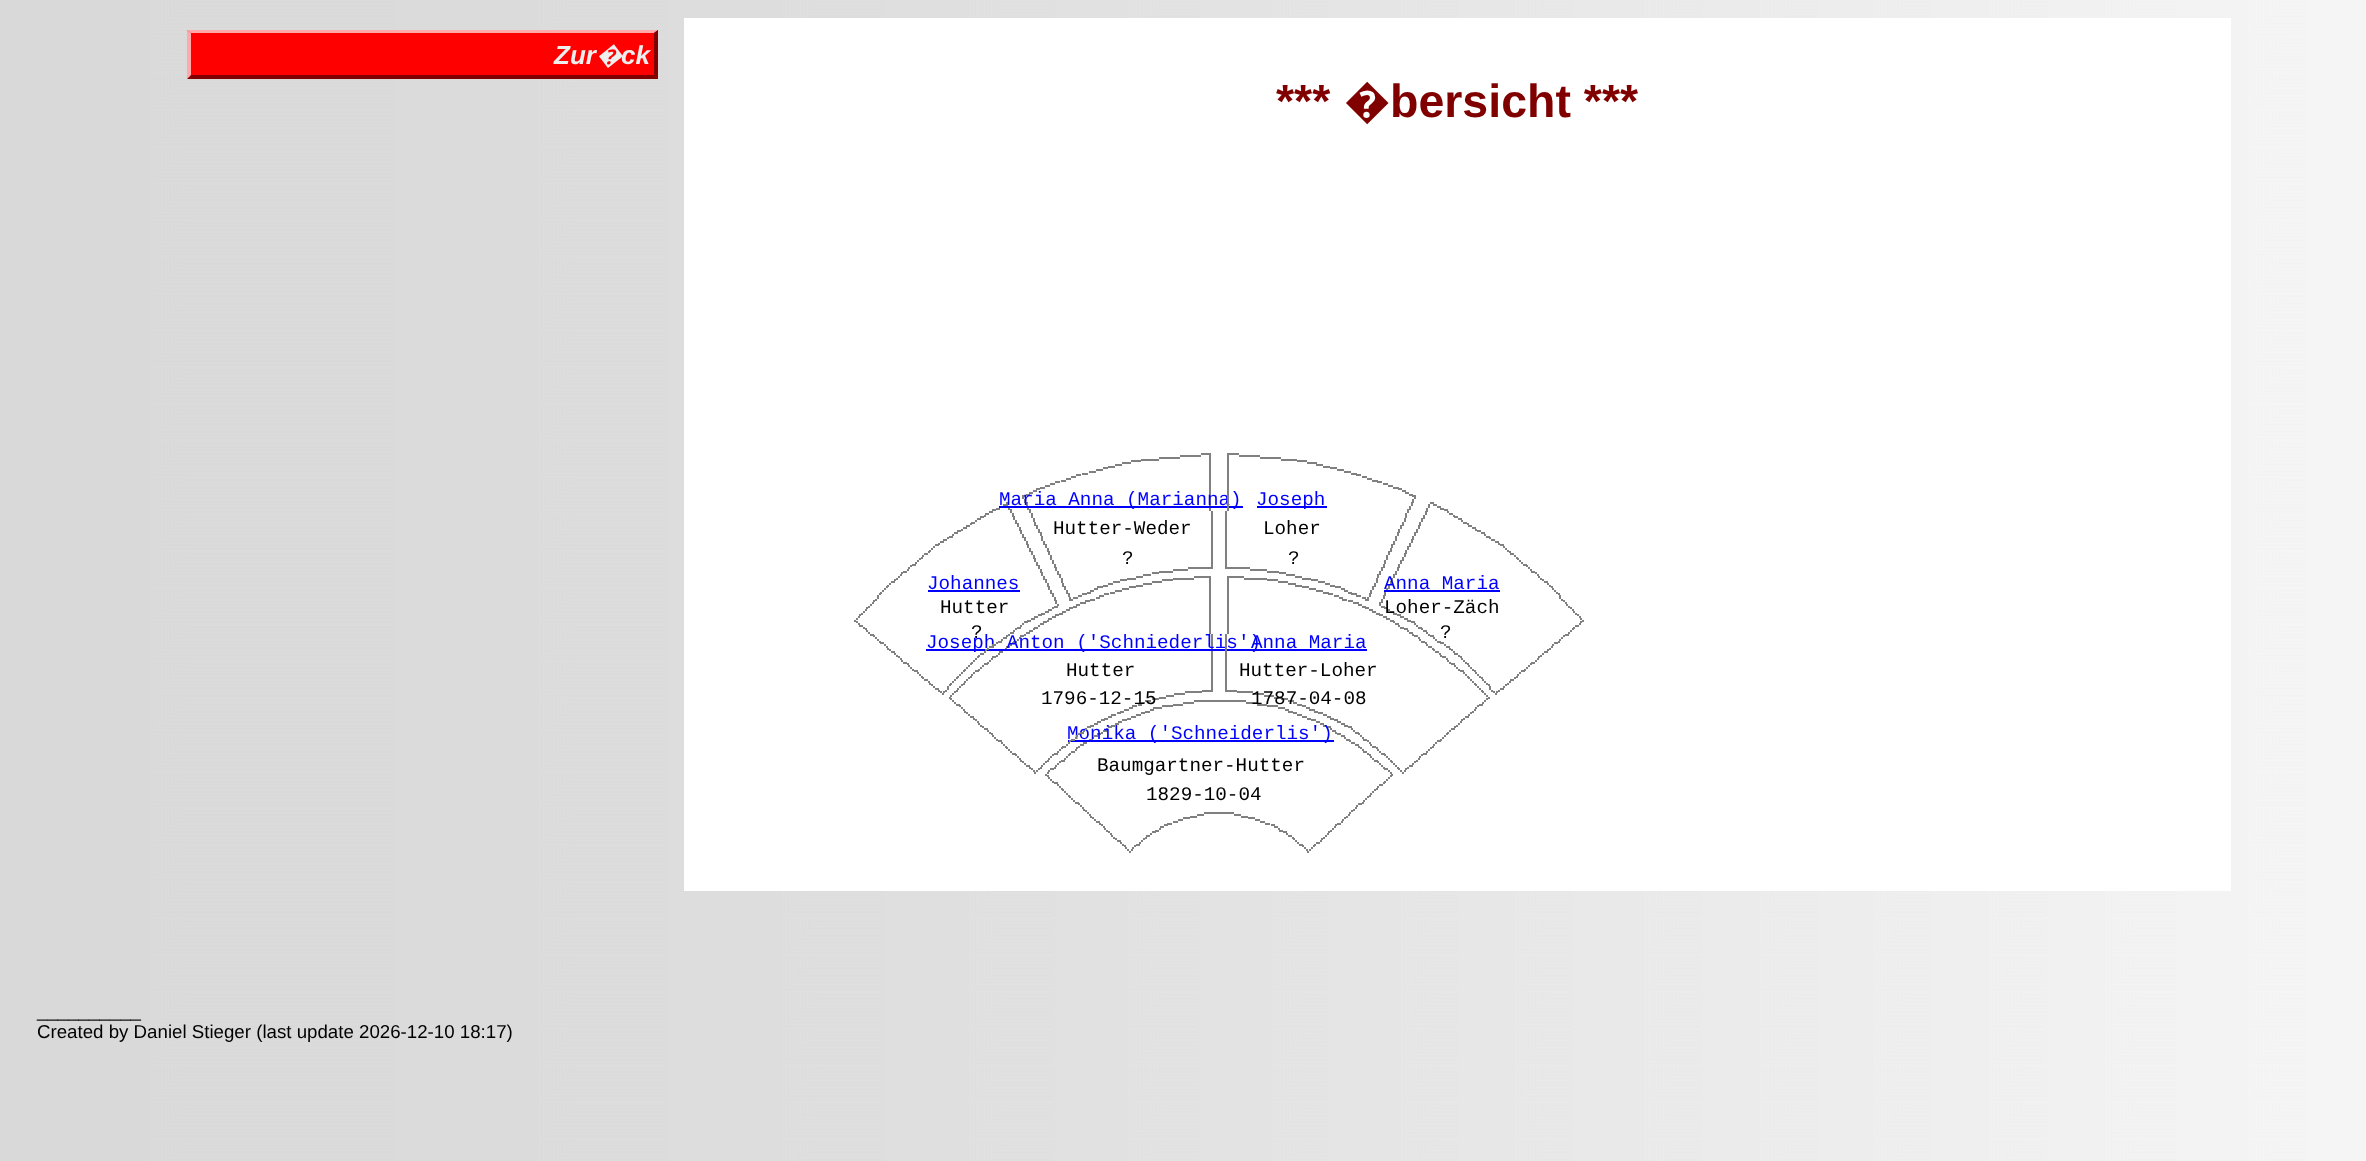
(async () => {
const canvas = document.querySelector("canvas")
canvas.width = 2366
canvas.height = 1161
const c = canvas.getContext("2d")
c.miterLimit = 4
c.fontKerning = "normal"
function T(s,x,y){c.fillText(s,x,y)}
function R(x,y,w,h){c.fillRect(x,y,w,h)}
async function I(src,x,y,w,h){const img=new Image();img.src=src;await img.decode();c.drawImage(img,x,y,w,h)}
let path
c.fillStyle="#fff"
R(0,0,2366,1161)
await I("1.png",0,0,2366,1161)
c.fillStyle="#f00"
R(187,30,471,49)
c.fillStyle="#faa"
path = new Path2D("M187 30h471l-4 3h-463z")
c.fill(path)
c.fillStyle="#800000"
path = new Path2D("M658 30v49l-4-4v-42z")
c.fill(path)
path = new Path2D("M658 79h-471l4-4h463z")
c.fill(path)
c.fillStyle="#faa"
path = new Path2D("M187 79v-49l4 3v42z")
c.fill(path)
c.font="italic bold 26px Liberation Sans"
c.fillStyle="#eee"
T("Zur",554,64)
c.font="italic bold 26px Noto Sans"
T("�",596,64)
c.font="italic bold 26px Liberation Sans"
T("ck",621,64)
c.fillStyle="#fff"
R(684,18,1547,873)
c.font="bold 46.5px Liberation Sans"
c.fillStyle="#800000"
T("***",1276,117)
c.font="900 46.5px Noto Sans"
T("�",1344,117)
c.font="bold 46.5px Liberation Sans"
T("bersicht ***",1390,117)
c.fillStyle="#808080"
R(1209,453,2,58)
R(1201,453,10,2)
R(1227,453,12,2)
R(1180,455,21,2)
R(1033,490,4,2)
R(1008,506,2,4)
R(1027,506,2,4)
c.fillStyle="#00f"
R(999,506,244,2)
c.fillStyle="#808080"
R(1029,492,4,2)
R(1022,495,4,2)
R(1026,494,4,2)
R(1022,495,2,4)
R(1024,499,2,4)
R(1006,502,2,4)
R(1026,502,2,4)
R(1003,504,4,2)
c.font="19.25px Liberation Mono"
c.fillStyle="#00f"
T("Maria Anna (Marianna)",999,505)
c.fillStyle="#808080"
R(1227,453,2,58)
R(1239,455,21,2)
R(1159,457,21,2)
R(1260,457,21,2)
R(1131,460,10,2)
R(1141,459,18,2)
R(1281,459,16,2)
R(1297,460,10,2)
R(1122,462,9,2)
R(1307,462,10,2)
R(1115,464,7,2)
R(1316,464,7,2)
R(1103,467,5,2)
R(1108,466,7,2)
R(1323,466,7,2)
R(1330,467,7,2)
R(1096,469,7,2)
R(1337,469,7,2)
R(1089,471,7,2)
R(1344,471,7,2)
R(1076,474,5,2)
R(1082,473,6,2)
R(1351,473,6,2)
R(1356,474,5,2)
R(1071,476,5,2)
R(1362,476,5,2)
R(1066,478,5,2)
R(1367,478,5,2)
R(1055,481,5,2)
R(1061,480,5,2)
R(1372,480,6,2)
R(1377,481,5,2)
R(1050,483,5,2)
R(1383,483,5,2)
R(1045,485,5,2)
R(1388,485,5,2)
R(1036,488,4,2)
R(1040,487,5,2)
R(1393,487,6,2)
R(1398,488,4,2)
R(1402,490,4,2)
c.fillStyle="#00f"
R(1257,506,70,2)
T("Joseph",1256,505)
c.fillStyle="#808080"
R(1405,492,4,2)
R(1409,494,4,2)
R(1414,495,2,4)
R(1412,495,4,2)
R(1411,502,2,4)
R(1412,499,2,4)
R(1430,502,4,2)
R(1428,504,2,4)
R(1433,504,4,2)
R(1409,506,2,4)
R(1437,506,4,2)
R(992,509,4,2)
R(996,508,4,2)
R(1010,509,2,4)
R(1029,509,2,4)
R(1407,509,2,4)
R(1425,511,2,4)
R(1426,508,2,4)
R(1440,508,4,2)
R(1444,509,4,2)
R(989,511,4,2)
R(1188,567,25,2)
R(1211,511,2,58)
R(1225,567,25,2)
R(1225,511,2,58)
R(1447,511,2,2)
R(985,513,4,2)
R(1012,513,2,4)
R(1031,513,2,5)
R(1405,513,2,5)
R(1449,513,4,2)
R(980,516,4,2)
R(984,515,2,2)
R(1013,516,2,4)
R(1423,515,2,4)
R(1453,515,2,2)
R(1454,516,4,2)
R(977,518,4,2)
R(1033,518,2,4)
R(1404,518,2,4)
R(1421,518,2,4)
R(1458,518,4,2)
R(975,520,2,2)
R(1015,520,2,4)
c.fillStyle="#000"
T("Hutter-Weder",1053,534)
T("Loher",1263,534)
c.fillStyle="#808080"
R(1461,520,2,2)
R(970,523,2,2)
R(971,522,4,2)
R(1034,522,2,4)
R(1402,522,2,4)
R(1418,525,2,4)
R(1419,522,2,4)
R(1463,522,4,2)
R(1017,523,2,4)
R(1467,523,2,2)
R(966,525,4,2)
R(1036,525,2,4)
R(1400,525,2,4)
R(1468,525,4,2)
R(963,527,4,2)
R(1019,527,2,4)
R(1472,527,4,2)
R(957,530,4,2)
R(961,529,2,2)
R(1020,530,2,4)
R(1038,529,2,4)
R(1397,532,2,4)
R(1398,529,2,4)
R(1416,529,2,4)
R(1475,529,2,2)
R(1477,530,4,2)
R(954,532,4,2)
R(1040,532,2,4)
R(1414,532,2,4)
R(1481,532,4,2)
R(952,534,2,2)
R(1022,534,2,4)
R(1484,534,2,2)
R(947,537,2,2)
R(949,536,4,2)
R(1024,537,2,4)
R(1041,536,2,5)
R(1395,536,2,5)
R(1411,539,2,4)
R(1412,536,2,4)
R(1486,536,4,2)
R(1489,537,2,2)
R(943,539,4,2)
R(1491,539,4,2)
R(940,541,4,2)
R(1026,541,2,4)
R(1043,541,2,4)
R(1393,541,2,4)
R(1495,541,4,2)
R(935,544,4,2)
R(938,543,2,2)
R(1409,543,2,4)
R(1498,543,2,2)
R(1027,544,2,4)
R(1045,544,2,4)
R(1391,544,2,4)
R(1500,544,4,2)
R(933,546,2,2)
R(1407,546,2,4)
R(1503,546,2,2)
R(931,548,2,2)
R(1029,548,2,4)
R(1047,548,2,4)
R(1390,548,2,4)
R(1505,548,2,2)
R(928,551,2,2)
R(929,550,2,2)
R(1404,553,2,4)
R(1405,550,2,4)
R(1507,550,2,2)
R(1031,551,2,4)
R(1048,551,2,4)
c.fillStyle="#000"
T("?",1122,564)
T("?",1288,564)
c.fillStyle="#808080"
R(1388,551,2,4)
R(1509,551,2,2)
R(924,553,4,2)
R(1510,553,4,2)
R(922,555,2,2)
R(1033,555,2,4)
R(1050,555,2,5)
R(1386,555,2,5)
R(1514,555,2,2)
R(919,558,2,2)
R(921,557,2,2)
R(1034,558,2,4)
R(1402,557,2,4)
R(1516,557,2,2)
R(1517,558,2,2)
R(917,560,2,2)
R(1052,560,2,4)
R(1384,560,2,4)
R(1400,560,2,4)
R(1519,560,2,2)
R(915,562,2,2)
R(1036,562,2,4)
R(1521,562,2,2)
R(910,565,2,2)
R(912,564,4,2)
R(1038,565,2,4)
R(1054,564,2,4)
R(1383,564,2,4)
R(1397,567,2,4)
R(1398,564,2,4)
R(1523,564,4,2)
R(1526,565,2,2)
R(908,567,2,2)
R(1055,567,2,4)
R(1381,567,2,4)
R(1528,567,2,2)
R(907,569,2,2)
R(1040,569,2,4)
R(1173,569,15,2)
R(1250,569,17,2)
R(1530,569,2,2)
R(901,572,2,2)
R(903,571,4,2)
R(1041,572,2,4)
R(1057,571,2,4)
R(1152,572,7,2)
R(1159,571,14,2)
R(1267,571,12,2)
R(1279,572,7,2)
R(1379,571,2,4)
R(1395,571,2,4)
R(1531,571,4,2)
R(1535,572,2,2)
R(900,574,2,2)
c.fillStyle="#00f"
T("Johannes",927,589)
R(928,590,92,2)
c.fillStyle="#808080"
R(1059,574,2,4)
R(1143,574,8,2)
R(1286,574,9,2)
R(1377,574,2,4)
R(1393,574,2,4)
R(1537,574,2,2)
R(898,576,2,2)
R(1043,576,2,4)
R(1136,576,7,2)
R(1209,576,2,58)
R(1194,576,17,2)
R(1390,581,2,4)
R(1391,578,2,4)
R(1388,585,2,4)
R(1386,588,2,4)
c.fillStyle="#00f"
T("Anna Maria",1384,589)
R(1384,590,116,2)
c.fillStyle="#808080"
R(1227,576,17,2)
R(1227,576,2,58)
R(1295,576,7,2)
R(1538,576,2,2)
R(894,579,2,2)
R(896,578,2,2)
R(1045,579,2,4)
R(1061,578,2,5)
R(1120,579,7,2)
R(1127,578,9,2)
R(1162,579,11,2)
R(1173,578,21,2)
R(1244,578,23,2)
R(1267,579,11,2)
R(1302,578,9,2)
R(1311,579,7,2)
R(1376,578,2,5)
R(1540,578,2,2)
R(1542,579,2,2)
R(891,581,4,2)
R(1113,581,7,2)
R(1152,581,10,2)
R(1278,581,10,2)
R(1318,581,7,2)
R(1544,581,4,2)
R(889,583,2,2)
R(1047,583,2,4)
R(1062,583,2,4)
R(1108,583,5,2)
R(1143,583,9,2)
R(1288,583,8,2)
R(1325,583,5,2)
R(1374,583,2,4)
R(1547,583,2,2)
R(886,586,2,2)
R(887,585,2,2)
R(1103,585,5,2)
R(1136,585,7,2)
R(1295,585,7,2)
R(1330,585,5,2)
R(1549,585,2,2)
R(1048,586,2,4)
R(1064,586,2,4)
R(1097,586,6,2)
R(1129,586,7,2)
R(1302,586,7,2)
R(1335,586,6,2)
R(1372,586,2,4)
R(1551,586,2,2)
R(884,588,2,2)
R(1094,588,4,2)
R(1122,588,7,2)
R(1309,588,7,2)
R(1341,588,4,2)
R(1552,588,2,2)
R(882,590,2,2)
R(1050,590,2,4)
R(1066,590,2,4)
R(1090,590,4,2)
R(1115,590,7,2)
R(1316,590,7,2)
R(1344,590,4,2)
R(1369,593,2,4)
R(1370,590,2,4)
R(1554,590,2,2)
R(879,593,2,2)
R(880,592,2,2)
R(1087,592,4,2)
R(1110,592,5,2)
R(1323,592,6,2)
R(1348,592,4,2)
R(1383,595,2,4)
R(1384,592,2,4)
R(1556,592,2,2)
R(1052,593,2,4)
R(1068,593,2,4)
R(1082,593,5,2)
R(1104,593,5,2)
R(1328,593,5,2)
R(1351,593,6,2)
R(1558,593,2,2)
R(875,599,2,2)
R(877,595,2,4)
R(1054,597,2,4)
R(1069,599,4,2)
R(1069,597,2,4)
R(1073,597,5,2)
R(1078,595,4,2)
R(1096,597,4,2)
R(1099,595,5,2)
R(1334,595,5,2)
R(1339,597,4,2)
R(1356,595,5,2)
R(1362,597,4,2)
R(1365,599,4,2)
R(1367,597,2,4)
R(1559,595,2,4)
R(873,600,2,2)
c.fillStyle="#000"
T("Hutter",940,613)
c.fillStyle="#808080"
R(1055,600,2,4)
R(1085,600,5,2)
R(1090,599,5,2)
R(1342,599,5,2)
R(1348,600,5,2)
R(1381,599,2,4)
R(1381,606,4,2)
R(1384,607,4,2)
R(1388,609,2,2)
R(1390,611,4,2)
R(1393,613,4,2)
c.fillStyle="#000"
T("Loher-Zäch",1384,613)
c.fillStyle="#808080"
R(1561,599,2,2)
R(1563,600,2,2)
R(872,602,2,2)
R(1080,602,6,2)
R(1353,602,6,2)
R(1379,602,2,4)
R(1565,602,2,2)
R(870,604,2,2)
R(1057,604,2,2)
R(1076,604,4,2)
R(1358,604,4,2)
R(1566,604,2,2)
R(866,607,2,2)
R(868,606,2,2)
R(1052,607,2,2)
R(1054,606,4,2)
R(1069,607,4,2)
R(1073,606,4,2)
R(1362,606,4,2)
R(1365,607,4,2)
R(1568,606,2,2)
R(1570,607,2,2)
R(865,609,2,2)
R(1048,609,4,2)
R(1066,609,4,2)
R(1369,609,4,2)
R(1572,609,2,2)
R(863,611,2,2)
R(1045,611,4,2)
R(1062,611,4,2)
R(1372,611,4,2)
R(1573,611,2,2)
R(859,614,2,2)
R(861,613,2,2)
R(1038,614,4,2)
R(1041,613,4,2)
R(1055,614,4,2)
R(1059,613,4,2)
R(1376,613,4,2)
R(1379,614,4,2)
R(1397,614,4,2)
R(1575,613,2,2)
R(1577,614,2,2)
R(858,616,2,2)
R(1034,616,4,2)
R(1052,616,4,2)
R(1383,616,4,2)
R(1400,616,4,2)
R(1579,616,2,2)
R(856,618,2,2)
R(1031,618,4,2)
R(1048,618,4,2)
R(1386,618,4,2)
R(1404,618,4,2)
R(1580,618,2,2)
R(854,620,2,2)
R(856,621,2,2)
R(1024,621,4,2)
R(1027,620,4,2)
R(1043,621,4,2)
R(1047,620,2,2)
R(1390,620,4,2)
R(1407,620,4,2)
R(1582,620,2,2)
R(1393,621,2,2)
R(1411,621,4,2)
R(1580,621,2,2)
R(858,623,2,2)
R(1022,623,2,2)
R(1040,623,4,2)
R(1395,623,4,2)
R(1414,623,2,2)
R(1579,623,2,2)
R(859,625,4,2)
c.fillStyle="#000"
T("?",971,638)
c.fillStyle="#808080"
R(1020,625,2,2)
R(1038,625,2,2)
R(1398,625,2,2)
R(1416,625,2,2)
c.fillStyle="#000"
T("?",1440,638)
c.fillStyle="#808080"
R(1575,625,4,2)
R(863,627,2,2)
R(865,628,2,2)
R(1015,628,2,2)
R(1017,627,4,2)
R(1033,628,2,2)
R(1034,627,4,2)
R(1400,627,4,2)
R(1418,627,4,2)
R(1572,628,2,2)
R(1573,627,2,2)
R(1404,628,4,2)
R(1421,628,2,2)
R(866,630,2,2)
R(1013,630,2,2)
R(1029,630,4,2)
R(1407,630,2,2)
R(1423,630,4,2)
R(1570,630,2,2)
R(868,632,2,2)
R(1010,632,4,2)
R(1026,632,4,2)
R(1409,632,4,2)
R(1426,632,2,2)
R(1568,632,2,2)
R(870,634,4,2)
R(1202,690,11,2)
R(1211,634,2,57)
c.fillStyle="#00f"
R(926,649,325,2)
c.fillStyle="#808080"
R(1020,635,4,2)
R(1024,634,2,2)
R(1019,637,2,2)
R(1017,639,2,2)
R(1012,642,2,2)
R(1013,641,4,2)
R(1010,644,2,2)
R(1006,646,4,2)
R(1005,648,2,1)
R(999,651,4,2)
c.fillStyle="#00f"
T("Joseph Anton ('Schniederlis')",926,648)
c.fillStyle="#808080"
R(873,635,2,2)
R(1006,635,2,2)
R(1008,634,2,2)
R(1225,690,12,2)
R(1225,634,2,57)
c.fillStyle="#00f"
T("Anna Maria",1251,648)
R(1251,649,116,2)
c.fillStyle="#808080"
R(1412,634,2,2)
R(1414,635,4,2)
R(1428,634,2,2)
R(1430,635,4,2)
R(1563,635,2,2)
R(1565,634,4,2)
R(875,637,2,2)
R(1003,637,4,2)
R(1418,637,2,2)
R(1433,637,2,2)
R(1561,637,2,2)
R(877,639,2,2)
R(1001,639,2,2)
R(1419,639,2,2)
R(1435,639,2,2)
R(1559,639,2,2)
R(879,641,2,2)
R(998,641,4,2)
R(1421,641,4,2)
R(1437,641,4,2)
R(1558,641,2,2)
R(880,642,4,2)
R(996,642,2,2)
R(1425,642,2,2)
R(1440,642,4,2)
R(1554,642,4,2)
R(884,644,2,2)
R(992,644,4,2)
R(1426,644,2,2)
R(1444,644,2,2)
R(1552,644,2,2)
R(886,646,2,2)
R(989,646,4,2)
R(1428,646,4,2)
R(1446,646,4,2)
R(1551,646,2,2)
R(887,648,2,2)
R(889,649,2,2)
R(985,649,2,2)
R(987,648,2,2)
R(1432,648,2,2)
R(1449,648,2,2)
R(1549,648,2,2)
R(1433,649,2,2)
R(1451,649,2,2)
R(1547,649,2,2)
R(891,651,4,2)
R(984,651,2,2)
R(1435,651,4,2)
R(1453,651,2,2)
R(1544,651,4,2)
R(894,653,2,2)
R(980,653,4,2)
R(998,653,2,2)
R(1439,653,2,2)
R(1454,653,4,2)
R(1542,653,2,2)
R(896,655,2,2)
R(898,656,2,2)
R(977,656,2,2)
R(978,655,2,2)
R(996,655,2,2)
R(1440,655,2,2)
R(1458,655,2,2)
R(1540,655,2,2)
R(992,656,4,2)
R(1442,656,4,2)
R(1460,656,2,2)
R(1538,656,2,2)
R(900,658,2,2)
R(975,658,2,2)
R(991,658,2,2)
R(1446,658,2,2)
R(1461,658,2,2)
R(1537,658,2,2)
R(901,660,2,2)
R(973,660,2,2)
R(989,660,2,2)
R(1447,660,2,2)
R(1463,660,2,2)
R(1535,660,2,2)
R(903,662,4,2)
R(907,663,2,2)
R(970,663,2,2)
R(971,662,2,2)
R(984,663,4,2)
R(987,662,2,2)
c.fillStyle="#000"
T("Hutter-Loher",1239,676)
c.fillStyle="#808080"
R(1449,662,2,2)
R(1465,662,2,2)
R(1530,663,2,2)
R(1531,662,4,2)
c.fillStyle="#000"
T("Hutter",1066,676)
c.fillStyle="#808080"
R(1451,663,4,2)
R(1467,663,2,2)
R(908,665,2,2)
R(968,665,2,2)
R(982,665,2,2)
R(1454,665,2,2)
R(1468,665,2,2)
R(1528,665,2,2)
R(910,667,2,2)
R(966,667,2,2)
R(980,667,2,2)
R(1456,667,2,2)
R(1470,667,2,2)
R(1526,667,2,2)
R(912,669,2,2)
R(914,670,4,2)
R(963,670,2,2)
R(964,669,2,2)
R(975,670,4,2)
R(978,669,2,2)
R(1458,669,2,2)
R(1472,669,2,2)
R(1521,670,4,2)
R(1524,669,2,2)
R(1460,670,4,2)
R(1474,670,2,2)
R(917,672,2,2)
R(961,672,2,2)
R(973,672,2,2)
R(1463,672,2,2)
R(1475,672,2,2)
R(1519,672,2,2)
R(919,674,2,2)
R(959,674,2,2)
R(971,674,2,2)
R(1465,674,2,2)
R(1477,674,2,2)
R(1517,674,2,2)
R(921,676,2,2)
R(956,677,2,2)
R(957,676,2,2)
R(970,676,2,2)
R(1467,676,2,2)
R(1479,676,2,2)
R(1516,676,2,2)
R(922,677,2,2)
R(968,677,2,2)
R(1468,677,2,2)
R(1481,677,2,2)
R(1514,677,2,2)
R(924,679,4,2)
R(954,679,2,2)
R(966,679,2,2)
R(1470,679,2,2)
R(1482,679,2,2)
R(1510,679,4,2)
R(928,681,2,2)
R(952,681,2,2)
R(964,681,2,2)
R(1472,681,2,2)
R(1484,681,2,2)
R(1509,681,2,2)
R(929,683,2,2)
R(931,684,2,2)
R(949,684,2,2)
R(950,683,2,2)
R(963,683,2,2)
R(1474,683,2,2)
R(1486,683,2,2)
R(1507,683,2,2)
R(961,684,2,2)
R(1475,684,2,2)
R(1488,684,2,2)
R(1505,684,2,2)
R(933,686,2,2)
R(947,686,2,4)
R(959,686,2,2)
R(1477,686,2,2)
R(1489,686,2,4)
R(1503,686,2,2)
R(935,688,4,2)
R(957,688,2,2)
R(1479,688,2,2)
R(1500,688,4,2)
R(938,690,2,2)
R(940,691,2,2)
R(943,691,2,2)
R(945,690,2,2)
R(954,691,2,2)
R(956,690,2,2)
R(1152,698,7,2)
R(1145,700,6,2)
R(1141,702,4,2)
R(1138,704,4,2)
c.fillStyle="#000"
T("1796-12-15",1041,704)
c.fillStyle="#808080"
R(1185,691,17,2)
R(1237,691,16,2)
R(1253,693,11,2)
R(1264,695,10,2)
R(1274,697,7,2)
R(1281,698,7,2)
R(1288,700,6,2)
R(1246,702,11,2)
R(1293,702,4,2)
R(1257,704,10,2)
R(1297,704,5,2)
c.fillStyle="#000"
T("1787-04-08",1251,704)
c.fillStyle="#808080"
R(1481,690,2,2)
R(1491,690,2,2)
R(1498,690,2,2)
R(1482,691,2,2)
R(1493,691,2,2)
R(1496,691,2,2)
R(942,693,2,2)
R(952,693,2,2)
R(1174,693,11,2)
R(1484,693,2,2)
R(1495,693,2,2)
R(950,695,2,2)
R(1166,695,8,2)
R(1486,695,2,2)
R(949,697,2,2)
R(1159,697,7,2)
R(1488,697,2,2)
R(950,698,2,2)
R(1486,698,2,2)
R(952,700,2,2)
R(1194,700,52,2)
R(1484,700,2,2)
R(954,702,2,2)
R(1183,702,11,2)
R(1482,702,2,2)
R(956,704,4,2)
R(1173,704,10,2)
R(1479,704,4,2)
R(959,705,2,2)
R(1132,705,5,2)
R(1162,705,11,2)
R(1267,705,11,2)
R(1302,705,4,2)
R(1477,705,2,2)
R(961,707,2,2)
R(1129,707,4,2)
R(1153,707,9,2)
R(1278,707,7,2)
R(1306,707,4,2)
R(1475,707,2,2)
R(963,709,2,2)
R(1124,709,5,2)
R(1150,709,4,2)
R(1285,709,4,2)
R(1309,709,6,2)
R(1474,709,2,2)
R(964,711,2,2)
R(966,712,2,2)
R(1117,712,4,2)
R(1120,711,4,2)
R(1141,712,4,2)
R(1145,711,5,2)
R(1288,711,5,2)
R(1293,712,4,2)
R(1314,711,4,2)
R(1318,712,5,2)
R(1470,712,2,2)
R(1472,711,2,2)
R(968,714,2,2)
R(1111,714,5,2)
R(1136,714,5,2)
R(1297,714,5,2)
R(1323,714,4,2)
R(1468,714,2,2)
R(970,716,4,2)
R(1108,716,4,2)
R(1131,716,5,2)
R(1302,716,5,2)
R(1327,716,4,2)
R(1465,716,4,2)
R(973,718,2,2)
R(975,719,2,2)
R(1101,719,4,2)
R(1104,718,4,2)
R(1122,719,5,2)
R(1127,718,4,2)
R(1307,718,4,2)
R(1311,719,5,2)
R(1330,718,4,2)
R(1334,719,4,2)
R(1461,719,2,2)
R(1463,718,2,2)
R(977,721,2,2)
R(1097,721,4,2)
R(1118,721,4,2)
R(1316,721,4,2)
R(1337,721,4,2)
R(1460,721,2,2)
R(978,723,2,2)
R(1094,723,4,2)
R(1115,723,4,2)
R(1320,723,4,2)
R(1341,723,4,2)
R(1458,723,2,2)
R(980,725,2,2)
c.fillStyle="#00f"
R(1068,740,266,2)
c.fillStyle="#808080"
R(1108,726,4,2)
R(1111,725,4,2)
R(1323,725,4,2)
R(1327,726,4,2)
R(1106,728,2,2)
R(1103,730,4,2)
R(1097,733,4,2)
R(1101,732,2,2)
R(1094,735,4,2)
R(1092,737,2,2)
R(1089,739,4,1)
R(1083,742,4,2)
c.fillStyle="#00f"
T("Monika ('Schneiderlis')",1067,739)
c.fillStyle="#808080"
R(982,726,2,2)
R(1087,726,4,2)
R(1090,725,4,2)
R(1344,725,4,2)
R(1348,726,4,2)
R(1454,726,2,2)
R(1456,725,2,2)
R(984,728,4,2)
R(1085,728,2,2)
R(1330,728,2,2)
R(1351,728,2,2)
R(1451,728,4,2)
R(987,730,2,2)
R(1083,730,2,2)
R(1332,730,4,2)
R(1353,730,2,2)
R(1449,730,2,2)
R(989,732,2,2)
R(991,733,2,2)
R(1078,733,2,2)
R(1080,732,4,2)
R(1335,732,2,2)
R(1337,733,4,2)
R(1355,732,4,2)
R(1446,733,2,2)
R(1447,732,2,2)
R(1358,733,2,2)
R(992,735,2,2)
R(1076,735,2,2)
R(1341,735,4,2)
R(1360,735,2,2)
R(1444,735,2,2)
R(994,737,2,2)
R(1075,737,2,2)
R(1344,737,2,2)
R(1362,737,2,2)
R(1442,737,2,2)
R(996,739,2,2)
R(998,740,4,2)
R(1069,740,2,2)
R(1071,739,4,2)
R(1346,739,4,2)
R(1363,739,4,2)
R(1437,740,4,2)
R(1440,739,2,2)
R(1349,740,2,2)
R(1367,740,2,2)
R(1001,742,2,2)
R(1068,742,2,2)
R(1351,742,4,2)
R(1369,742,2,2)
R(1435,742,2,2)
R(1003,744,2,2)
R(1066,744,2,2)
R(1080,744,4,2)
R(1355,744,4,2)
R(1370,744,2,2)
R(1433,744,2,2)
R(1005,746,2,2)
R(1061,747,2,2)
R(1062,746,4,2)
R(1078,746,2,2)
R(1358,746,2,2)
R(1372,746,4,2)
R(1432,746,2,2)
R(1006,747,2,2)
R(1076,747,2,2)
R(1360,747,2,2)
R(1376,747,2,2)
R(1430,747,2,2)
R(1008,749,2,2)
R(1059,749,2,2)
R(1075,749,2,2)
R(1362,749,2,2)
R(1377,749,2,2)
R(1428,749,2,2)
R(1010,751,2,2)
R(1057,751,2,2)
R(1071,751,4,2)
R(1363,751,4,2)
R(1379,751,2,2)
R(1426,751,2,2)
R(1012,753,4,2)
R(1054,753,4,2)
R(1068,754,2,2)
R(1069,753,2,2)
R(1367,753,2,2)
R(1381,753,4,2)
R(1423,753,4,2)
R(1015,754,2,2)
R(1052,754,2,2)
R(1369,754,2,2)
R(1384,754,2,2)
R(1421,754,2,2)
R(1017,756,2,2)
R(1050,756,2,2)
R(1066,756,2,2)
R(1370,756,2,2)
R(1386,756,2,2)
R(1419,756,2,2)
R(1019,758,2,2)
R(1048,758,2,2)
R(1064,758,2,2)
c.fillStyle="#000"
T("Baumgartner-Hutter",1097,771)
c.fillStyle="#808080"
R(1372,758,2,2)
R(1388,758,2,2)
R(1418,758,2,2)
R(1020,760,2,2)
R(1022,761,2,2)
R(1045,761,2,2)
R(1047,760,2,2)
R(1059,761,2,2)
R(1061,760,4,2)
R(1374,760,4,2)
R(1390,760,2,2)
R(1416,760,2,2)
R(1377,761,2,2)
R(1391,761,2,2)
R(1414,761,2,2)
R(1024,763,2,2)
R(1043,763,2,2)
R(1057,763,2,2)
R(1379,763,2,2)
R(1393,763,2,2)
R(1412,763,2,2)
R(1026,765,4,2)
R(1041,765,2,2)
R(1055,765,2,2)
R(1381,765,2,2)
R(1395,765,2,2)
R(1409,765,4,2)
R(1029,767,2,2)
R(1031,768,2,2)
R(1038,768,2,2)
R(1040,767,2,2)
R(1050,768,4,2)
R(1054,767,2,2)
R(1383,767,2,2)
R(1397,767,2,2)
R(1407,767,2,2)
R(1384,768,4,2)
R(1398,768,2,2)
R(1405,768,2,2)
R(1033,770,2,2)
R(1036,770,2,2)
R(1048,770,2,2)
R(1388,770,2,2)
R(1400,770,2,2)
R(1404,770,2,2)
R(1034,772,2,2)
R(1047,772,2,2)
R(1390,772,2,2)
R(1402,772,2,2)
R(1045,774,2,2)
R(1047,775,2,2)
R(1390,775,2,2)
R(1391,774,2,2)
R(1048,777,2,2)
R(1388,777,2,2)
R(1050,779,2,2)
R(1386,779,2,2)
R(1052,781,2,2)
R(1054,782,4,2)
R(1383,782,2,2)
R(1384,781,2,2)
R(1057,784,2,2)
R(1379,784,4,2)
R(1059,786,2,2)
R(1061,788,2,2)
c.fillStyle="#000"
T("1829-10-04",1146,800)
c.fillStyle="#808080"
R(1377,786,2,2)
R(1062,789,2,2)
R(1374,789,2,2)
R(1376,788,2,2)
R(1064,791,2,2)
R(1372,791,2,2)
R(1066,793,2,2)
R(1370,793,2,2)
R(1068,795,2,2)
R(1369,795,2,2)
R(1069,796,2,2)
R(1367,796,2,2)
R(1071,798,2,2)
R(1365,798,2,2)
R(1073,800,2,2)
R(1363,800,2,2)
R(1075,802,4,2)
R(1362,802,2,2)
R(1078,803,2,2)
R(1358,803,4,2)
R(1080,805,2,2)
R(1356,805,2,2)
R(1082,807,2,2)
R(1355,807,2,2)
R(1083,809,2,2)
R(1085,810,2,2)
R(1351,810,2,2)
R(1353,809,2,2)
R(1087,812,2,2)
R(1204,812,30,2)
R(1349,812,2,2)
R(1089,814,2,2)
R(1197,814,7,2)
R(1234,814,7,2)
R(1348,814,2,2)
R(1090,816,2,2)
R(1092,817,2,2)
R(1183,817,7,2)
R(1190,816,7,2)
R(1241,816,7,2)
R(1248,817,7,2)
R(1344,817,2,2)
R(1346,816,2,2)
R(1094,819,2,2)
R(1178,819,5,2)
R(1255,819,5,2)
R(1342,819,2,2)
R(1096,821,4,2)
R(1173,821,5,2)
R(1260,821,5,2)
R(1341,821,2,2)
R(1099,823,2,2)
R(1101,824,2,2)
R(1164,824,4,2)
R(1167,823,5,2)
R(1265,823,5,2)
R(1271,824,4,2)
R(1335,824,2,2)
R(1337,823,4,2)
R(1103,826,2,2)
R(1160,826,4,2)
R(1274,826,4,2)
R(1334,826,2,2)
R(1104,828,2,2)
R(1159,828,2,2)
R(1278,828,2,2)
R(1332,828,2,2)
R(1106,830,2,2)
R(1108,831,2,2)
R(1152,831,4,2)
R(1155,830,4,2)
R(1279,830,4,2)
R(1283,831,4,2)
R(1328,831,2,2)
R(1330,830,2,2)
R(1110,833,2,2)
R(1150,833,2,2)
R(1286,833,2,2)
R(1327,833,2,2)
R(1111,835,2,2)
R(1146,835,4,2)
R(1288,835,4,2)
R(1325,835,2,2)
R(1113,837,2,2)
R(1115,838,2,2)
R(1143,838,2,2)
R(1145,837,2,2)
R(1292,837,2,2)
R(1323,837,2,2)
R(1293,838,2,2)
R(1321,838,2,2)
R(1117,840,4,2)
R(1141,840,2,2)
R(1295,840,2,2)
R(1320,840,2,2)
R(1120,842,2,2)
R(1139,842,2,2)
R(1297,842,2,2)
R(1316,842,4,2)
R(1122,844,2,2)
R(1124,845,2,2)
R(1134,845,2,2)
R(1136,844,4,2)
R(1299,844,4,2)
R(1313,845,2,2)
R(1314,844,2,2)
R(1302,845,2,2)
R(1125,847,2,2)
R(1132,847,2,2)
R(1304,847,2,2)
R(1311,847,2,2)
R(1127,849,2,2)
R(1131,849,2,2)
R(1306,849,2,2)
R(1309,849,2,2)
R(1129,851,2,2)
R(1307,851,2,2)
c.font="18.7px Liberation Sans"
c.fillStyle="#000"
T("__________",37,1017)
T("Created by Daniel Stieger (last update 2026-12-10 18:17)",37,1038)
})()
